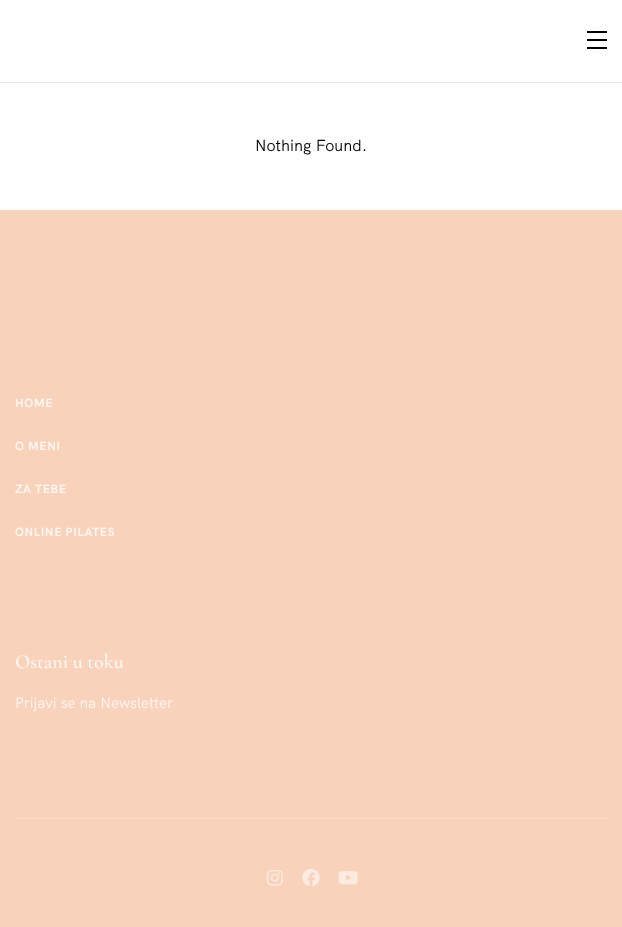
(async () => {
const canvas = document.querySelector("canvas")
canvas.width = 622
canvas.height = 927
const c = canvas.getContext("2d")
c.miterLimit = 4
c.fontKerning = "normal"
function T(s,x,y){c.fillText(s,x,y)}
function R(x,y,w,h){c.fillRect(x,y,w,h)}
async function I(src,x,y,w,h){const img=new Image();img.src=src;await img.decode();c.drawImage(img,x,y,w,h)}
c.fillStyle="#fff"
R(0,0,622,927)
c.fillStyle="#e6e6e6"
R(0,82,622,1)
c.fillStyle="#000"
R(587,47,20,2)
R(587,31,20,2)
R(587,39,20,2)
c.font="16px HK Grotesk"
T("Nothing Found.",255,151)
c.fillStyle="#f8d2bb"
R(0,210,622,717)
c.letterSpacing="0.6px"
c.font="bold 12px HK Grotesk"
c.fillStyle="#fef6f1"
T("HOME",15,407)
T("O MENI",15,450)
T("ZA TEBE",15,493)
T("ONLINE PILATES",15,536)
c.letterSpacing="0px"
c.font="600 20px Cormorant Garamond"
T("Ostani u toku",15,668)
c.font="15px HK Grotesk"
T("Prijavi se na Newsletter",15,708)
c.fillStyle="#f9d7c2"
R(15,817,592,2)
await I("1.png",267,869,16,17)
await I("2.png",302,869,18,18)
await I("3.png",338,871,20,14)
})()
